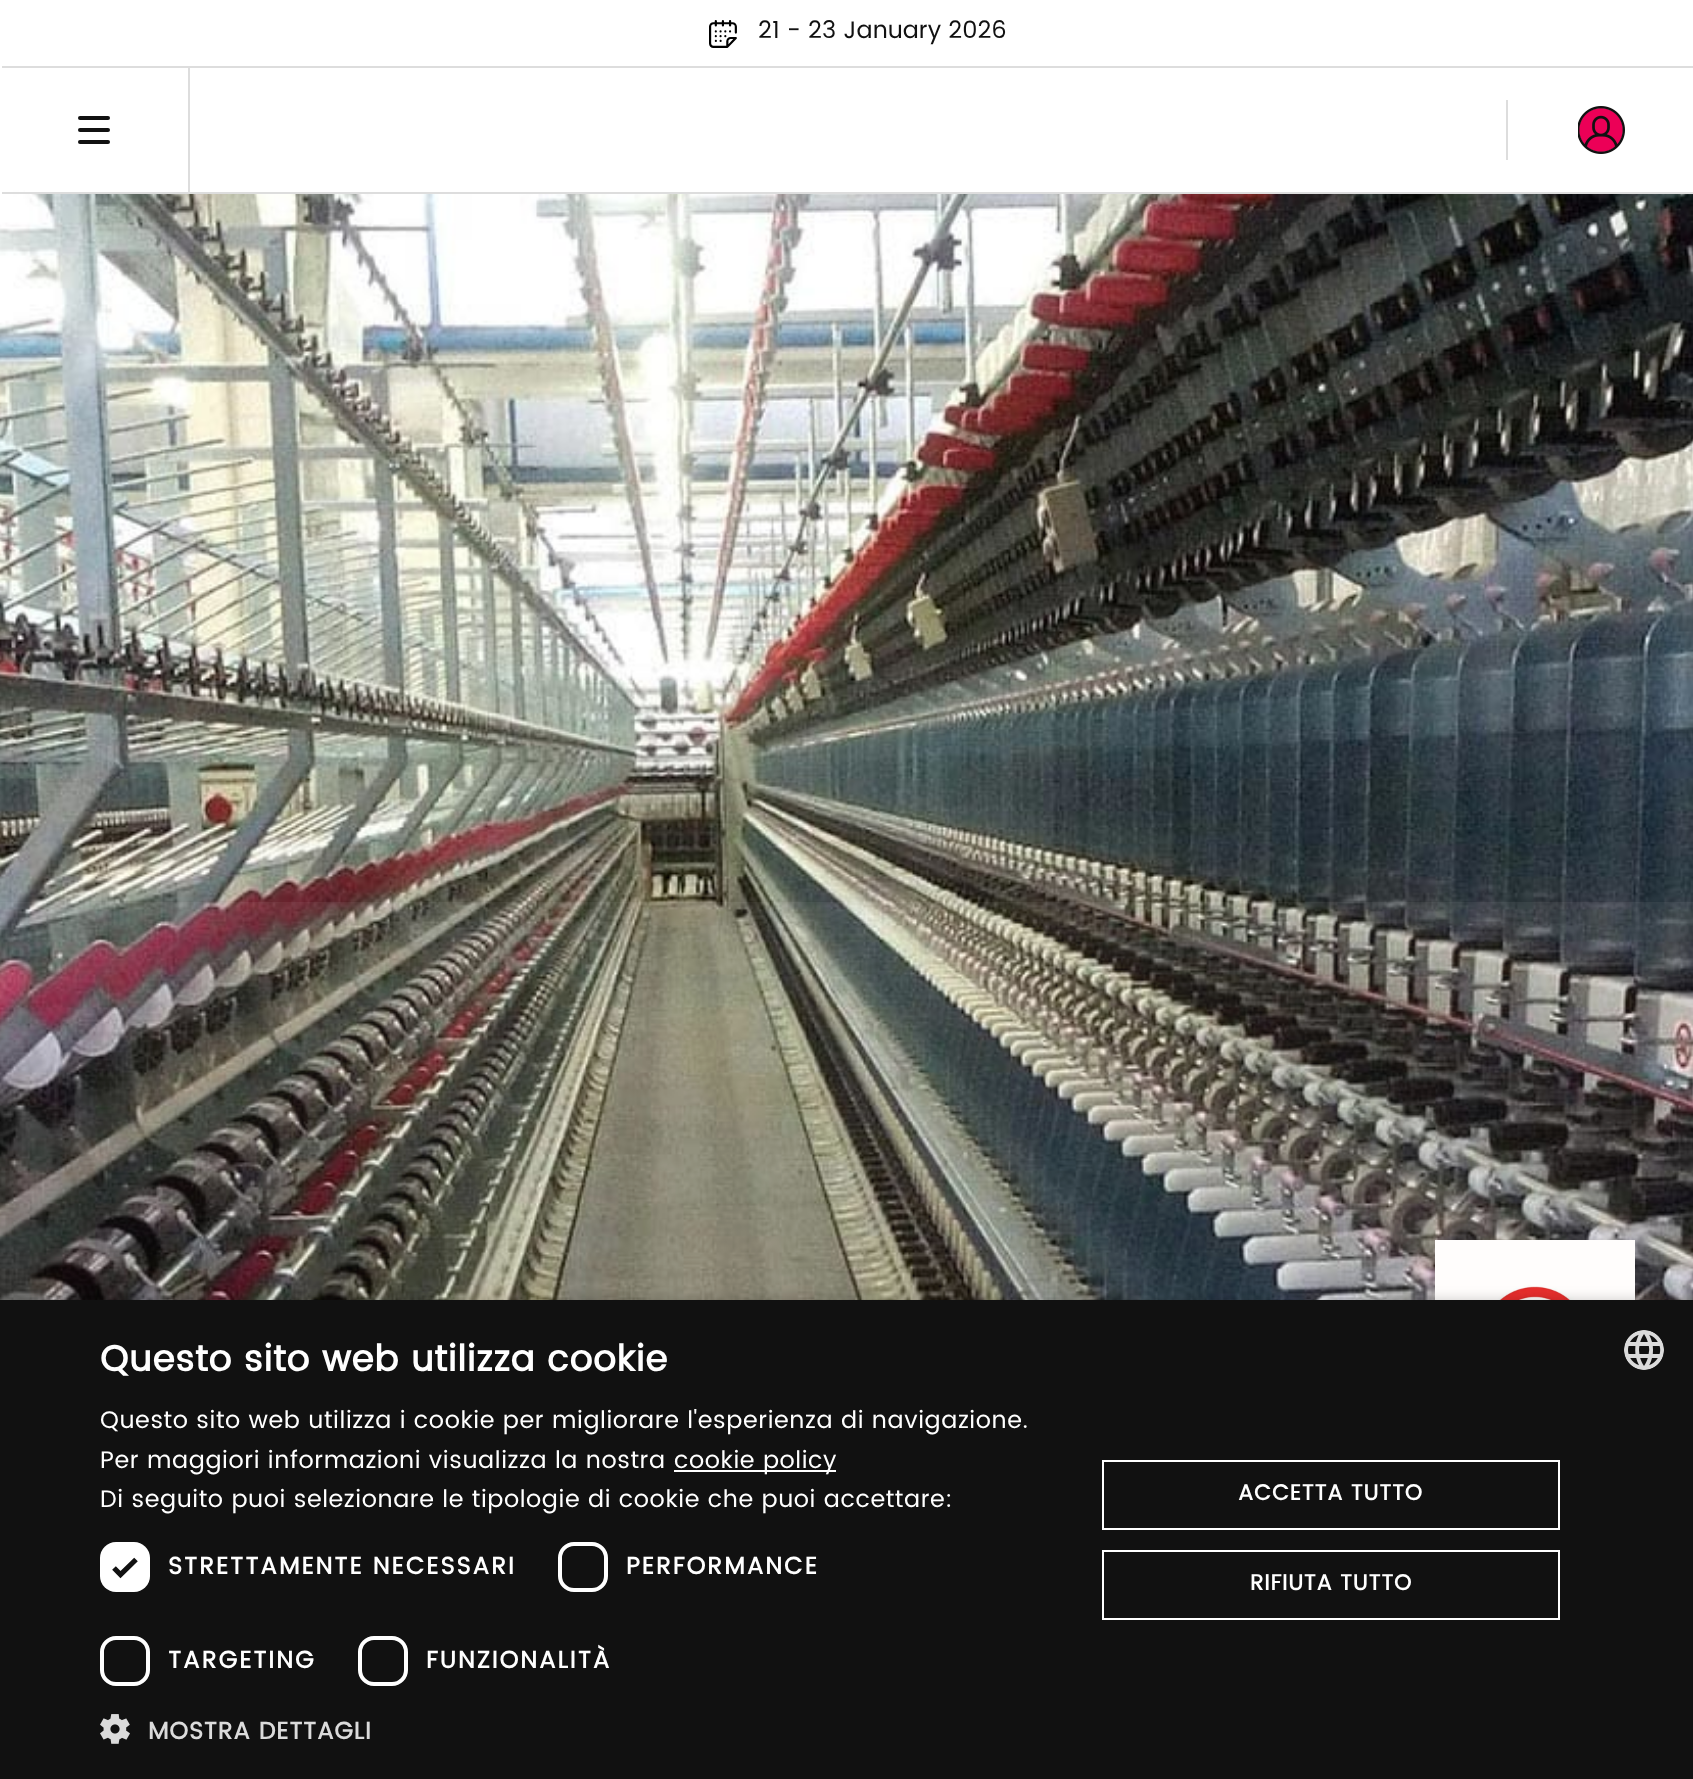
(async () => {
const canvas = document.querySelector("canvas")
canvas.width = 1693
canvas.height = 1779
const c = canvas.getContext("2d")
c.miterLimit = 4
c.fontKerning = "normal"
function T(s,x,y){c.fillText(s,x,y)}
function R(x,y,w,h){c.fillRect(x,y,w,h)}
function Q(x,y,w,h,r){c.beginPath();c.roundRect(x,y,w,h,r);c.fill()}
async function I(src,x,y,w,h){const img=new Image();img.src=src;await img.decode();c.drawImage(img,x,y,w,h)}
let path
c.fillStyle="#fff"
R(0,0,1693,1779)
c.fillStyle="#ddd"
R(2,66,1691,2)
await I("1.png",709,20,28,28)
c.font="24px Poppins"
c.fillStyle="#111"
T("21 - 23 January 2026",758,38)
await I("3.png",0,190,1693,1110)
c.fillStyle="#fff"
R(25,190,1668,2)
c.fillStyle="#ddd"
R(2,192,1691,2)
R(188,68,2,124)
c.fillStyle="#111"
Q(78,116,32,4,2)
Q(78,128,32,4,2)
Q(78,140,32,4,2)
c.fillStyle="#ddd"
R(1506,100,2,60)
await I("2.png",1578,106,47,48)
await I("4.png",1435,1240,200,60)
c.fillStyle="#00000059"
c.filter="blur(8px)"
c.beginPath()
c.rect(2,1304,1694,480)
c.fill()
c.filter="none"
c.fillStyle="#111"
R(0,1300,1693,479)
c.letterSpacing="0.8px"
c.font="bold 36px Poppins"
c.fillStyle="#fff"
T("Questo sito web utilizza cookie",100,1371)
c.letterSpacing="0.6px"
c.font="24px Poppins"
T("Questo sito web utilizza i cookie per migliorare l'esperienza di navigazione.",100,1428)
T("Per maggiori informazioni visualizza la nostra",100,1468)
R(674,1470,162,2)
T("cookie policy",674,1468)
T("Di seguito puoi selezionare le tipologie di cookie che puoi accettare:",100,1507)
Q(100,1542,50,50,16)
path = new Path2D("M114 1568l6.5 6.5l15.5-15")
c.strokeStyle="#111"
c.lineWidth=5.2
c.stroke(path)
c.letterSpacing="2px"
c.font="bold 24px Poppins"
T("STRETTAMENTE NECESSARI",168,1574)
c.beginPath()
c.roundRect(560,1544,46,46,14)
c.strokeStyle="#fff"
c.lineWidth=4
c.stroke()
T("PERFORMANCE",626,1574)
c.beginPath()
c.roundRect(102,1638,46,46,14)
c.stroke()
T("TARGETING",168,1668)
c.beginPath()
c.roundRect(360,1638,46,46,14)
c.stroke()
T("FUNZIONALITÀ",426,1668)
await I("5.png",100,1714,30,30)
c.letterSpacing="0.8px"
c.fillStyle="#dbdbdb"
T("MOSTRA DETTAGLI",148,1739)
c.lineWidth=2
c.strokeRect(1103,1461,456,68)
c.font="bold 22px Poppins"
c.fillStyle="#fff"
T("ACCETTA TUTTO",1238,1500)
c.strokeRect(1103,1551,456,68)
T("RIFIUTA TUTTO",1250,1590)
await I("6.png",1624,1330,40,40)
})()
